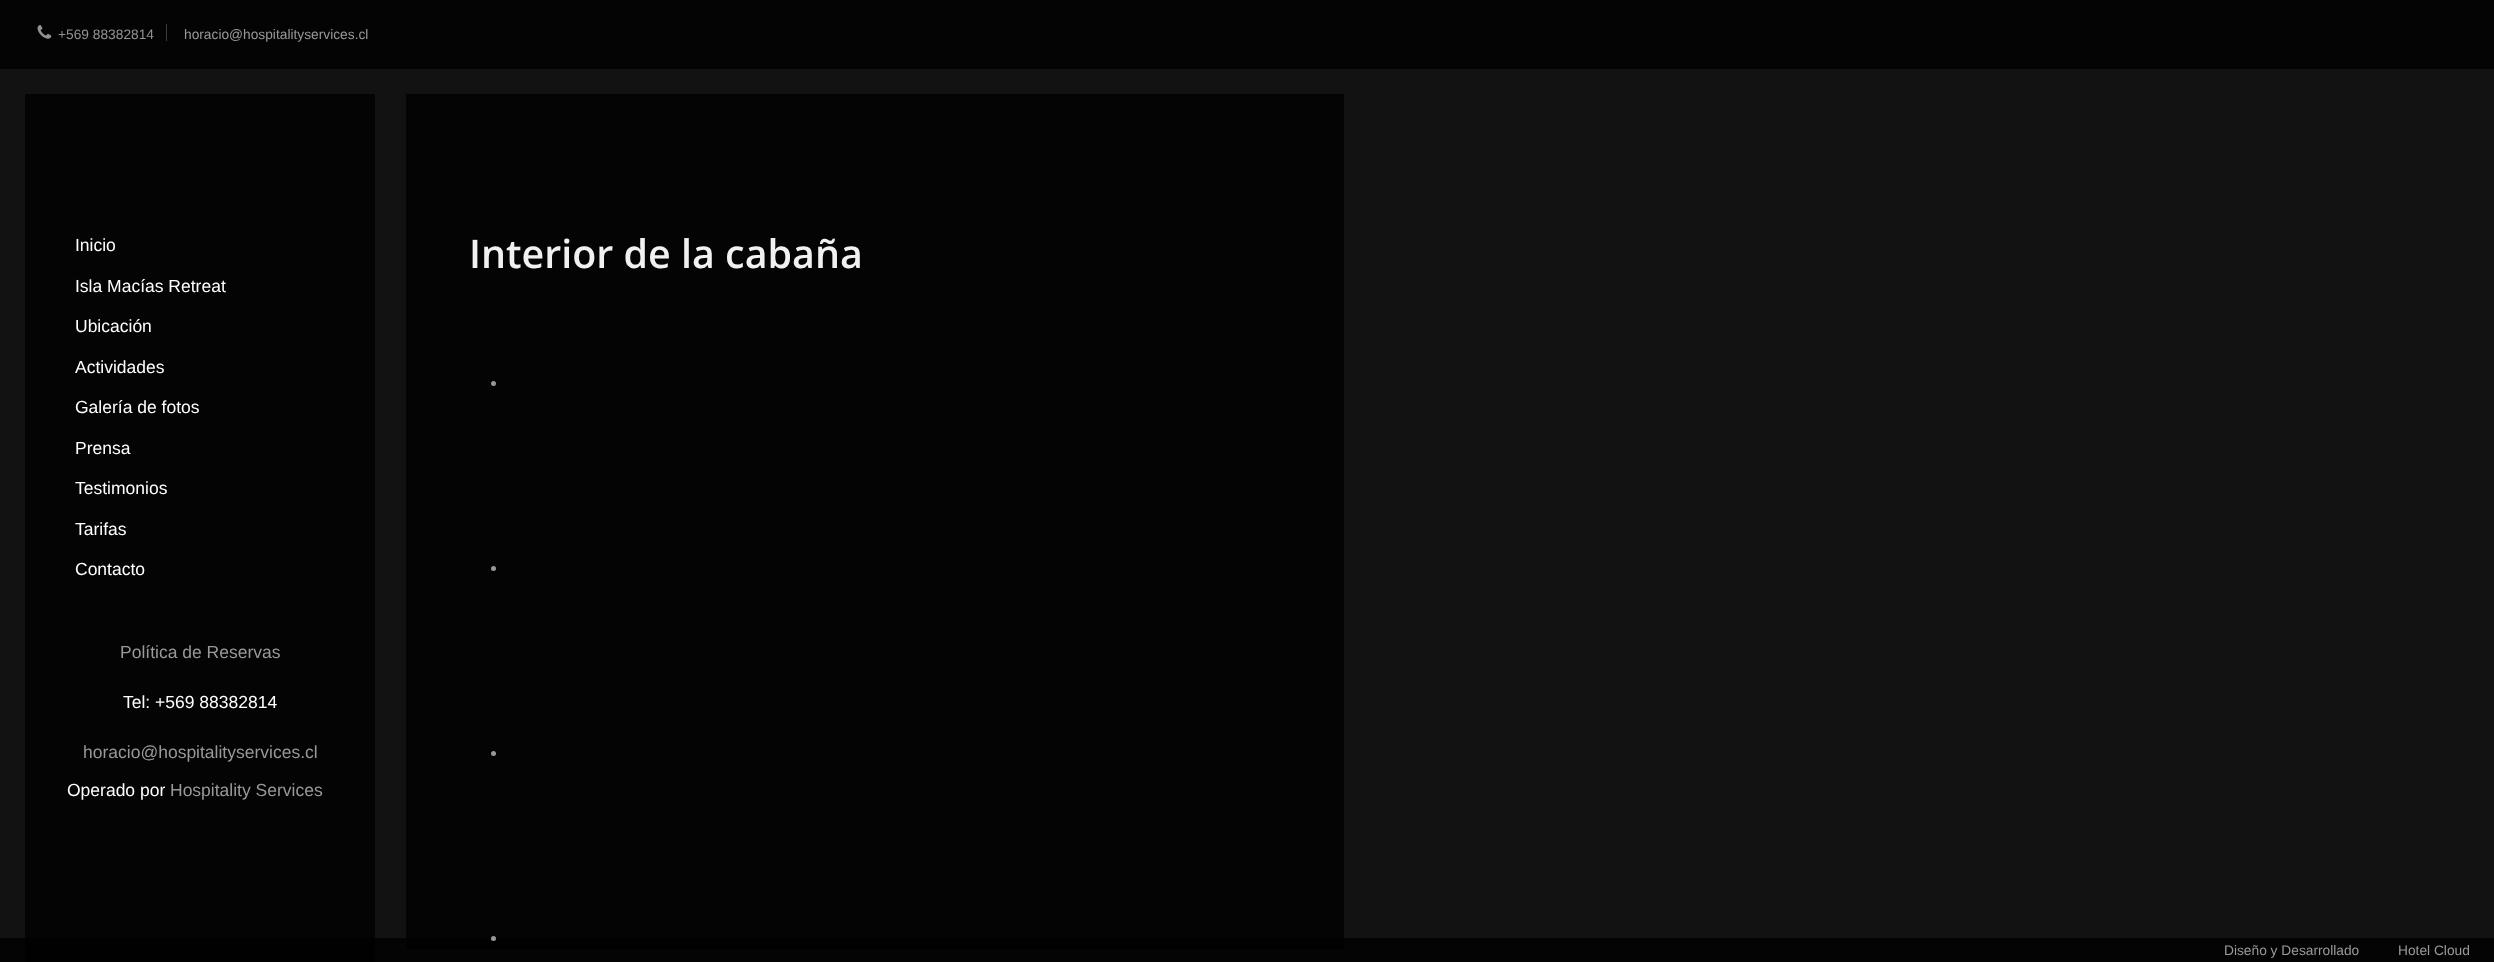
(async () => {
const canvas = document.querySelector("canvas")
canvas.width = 2494
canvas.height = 962
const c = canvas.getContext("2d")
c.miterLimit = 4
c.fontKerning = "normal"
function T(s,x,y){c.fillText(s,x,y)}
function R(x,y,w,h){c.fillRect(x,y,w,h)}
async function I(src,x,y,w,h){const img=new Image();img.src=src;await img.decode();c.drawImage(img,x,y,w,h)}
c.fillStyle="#121212"
R(0,0,2494,962)
c.fillStyle="#040404"
R(25,94,350,844)
R(406,94,938,844)
R(0,0,2494,69)
c.fillStyle="#3c3c3c"
R(166,24,1,17)
await I("1.png",37,25,15,14)
c.font="13.75px Liberation Sans"
c.fillStyle="#939393"
T("+569 88382814",58,39)
c.fillStyle="#999"
T("horacio@hospitalityservices.cl",184,39)
c.font="17.5px Liberation Sans"
c.fillStyle="#fff"
T("Inicio",75,251)
T("Isla Macías Retreat",75,292)
T("Ubicación",75,332)
T("Actividades",75,373)
T("Galería de fotos",75,413)
T("Prensa",75,454)
T("Testimonios",75,494)
T("Tarifas",75,535)
T("Contacto",75,575)
c.fillStyle="#999"
T("Política de Reservas",120,658)
c.fillStyle="#fff"
T("Tel: +569 88382814",123,708)
c.fillStyle="#999"
T("horacio@hospitalityservices.cl",83,758)
c.fillStyle="#fff"
T("Operado por",67,796)
c.fillStyle="#999"
T("Hospitality Services",170,796)
c.font="600 39.4px Open Sans"
c.fillStyle="#f1f1f1"
T("Interior de la cabaña",469,268)
c.fillStyle="#999"
c.beginPath()
c.arc(493.5,383.5,2.5,0,7)
c.fill()
c.beginPath()
c.arc(493.5,568.5,2.5,0,7)
c.fill()
c.beginPath()
c.arc(493.5,753.5,2.5,0,7)
c.fill()
c.fillStyle="#040404"
R(0,938,2494,24)
c.fillStyle="#010101"
R(406,938,938,11)
c.fillStyle="#999"
c.beginPath()
c.arc(493.5,938.5,2.5,0,7)
c.fill()
c.fillStyle="#010101"
R(25,938,350,24)
c.font="13.75px Liberation Sans"
c.fillStyle="#999"
T("Diseño y Desarrollado",2224,955)
T("Hotel Cloud",2398,955)
})()
